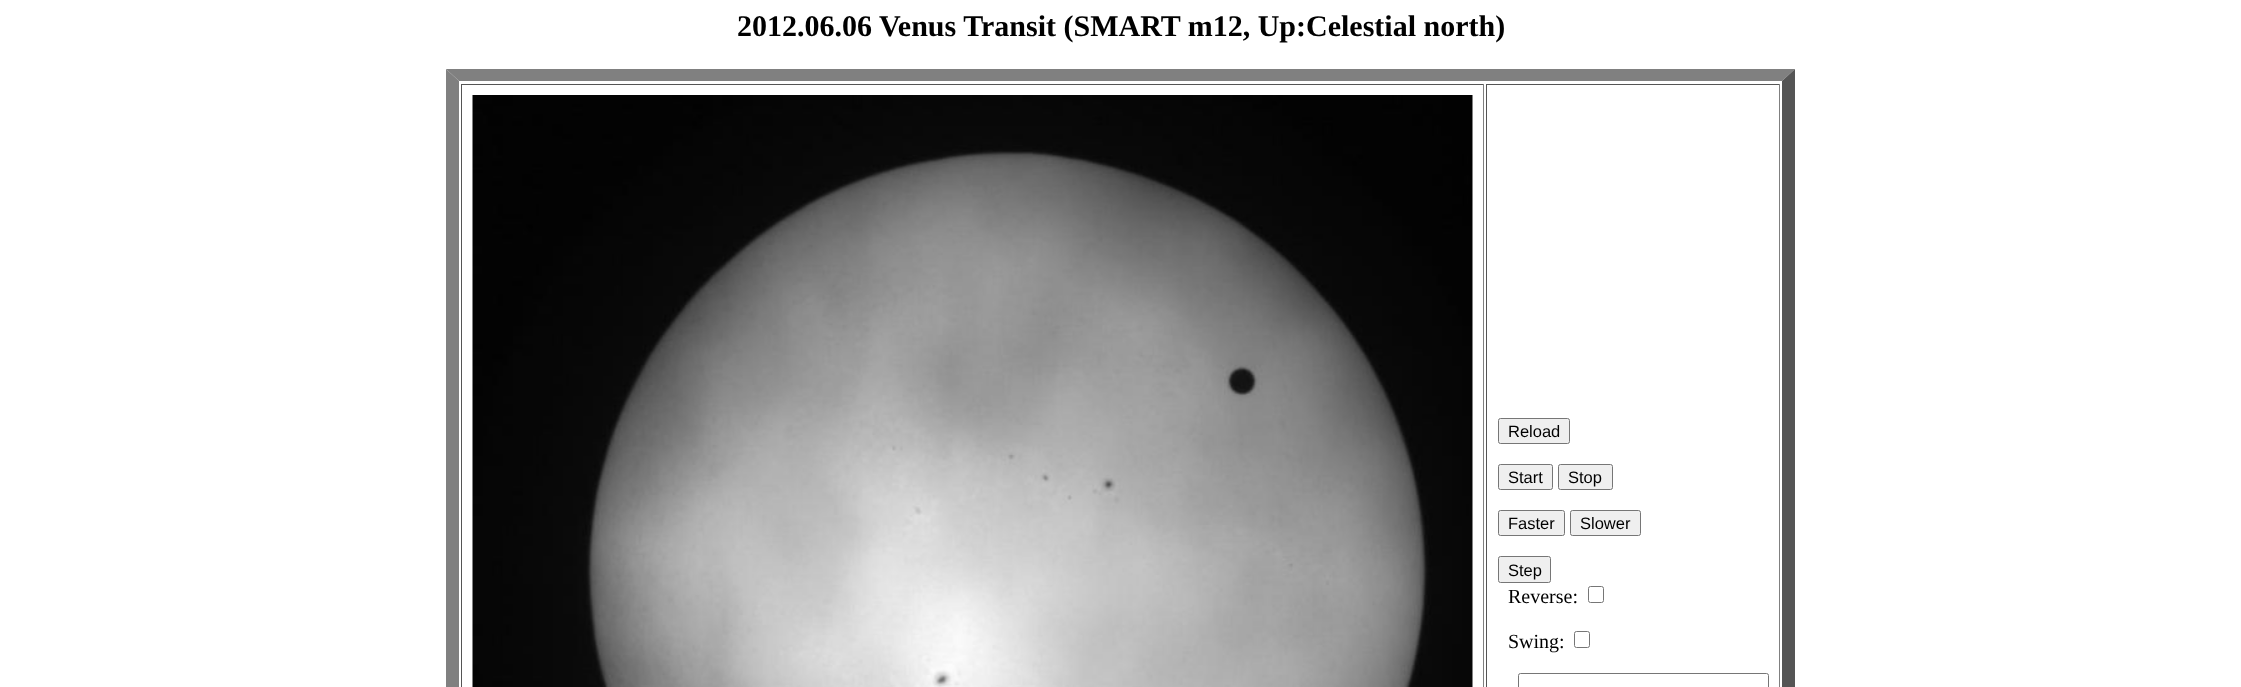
(async () => {
const canvas = document.querySelector("canvas")
canvas.width = 2241
canvas.height = 687
const c = canvas.getContext("2d")
c.miterLimit = 4
c.fontKerning = "normal"
function T(s,x,y){c.fillText(s,x,y)}
function R(x,y,w,h){c.fillRect(x,y,w,h)}
async function I(src,x,y,w,h){const img=new Image();img.src=src;await img.decode();c.drawImage(img,x,y,w,h)}
let path
c.fillStyle="#fff"
R(0,0,2241,687)
c.font="bold 30px Liberation Serif"
c.fillStyle="#000"
T("2012.06.06 Venus Transit (SMART m12, Up:Celestial north)",737,36)
c.fillStyle="#808080"
path = new Path2D("M446 69h1349l-13 12h-1323z")
c.fill(path)
c.fillStyle="#555"
path = new Path2D("M1795 69v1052l-13-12v-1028z")
c.fill(path)
c.fillStyle="#808080"
path = new Path2D("M446 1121v-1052l13 12v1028z")
c.fill(path)
c.fillStyle="#555"
R(461,84,1023,1)
c.fillStyle="#808080"
R(1483,84,1,603)
c.fillStyle="#555"
R(461,84,1,603)
await I("1.png",472,95,1001,592)
R(1486,84,294,1)
c.fillStyle="#808080"
R(1779,84,1,603)
c.fillStyle="#555"
R(1486,84,1,603)
c.fillStyle="#efefef"
c.beginPath()
c.roundRect(1498.5,418.5,71,25,2)
c.fill()
c.strokeStyle="#767676"
c.stroke()
c.font="16.5px Liberation Sans"
c.fillStyle="#000"
T("Reload",1508,437)
c.fillStyle="#efefef"
c.beginPath()
c.roundRect(1498.5,464.5,54,25,2)
c.fill()
c.stroke()
c.fillStyle="#000"
T("Start",1508,483)
c.fillStyle="#efefef"
c.beginPath()
c.roundRect(1558.5,464.5,54,25,2)
c.fill()
c.stroke()
c.fillStyle="#000"
T("Stop",1568,483)
c.fillStyle="#efefef"
c.beginPath()
c.roundRect(1498.5,510.5,66,25,2)
c.fill()
c.stroke()
c.fillStyle="#000"
T("Faster",1508,529)
c.fillStyle="#efefef"
c.beginPath()
c.roundRect(1570.5,510.5,70,25,2)
c.fill()
c.stroke()
c.fillStyle="#000"
T("Slower",1580,529)
c.fillStyle="#efefef"
c.beginPath()
c.roundRect(1498.5,556.5,52,26,2)
c.fill()
c.stroke()
c.fillStyle="#000"
T("Step",1508,576)
c.font="20px Liberation Serif"
T("Reverse:",1508,603)
c.beginPath()
c.roundRect(1588.5,586.5,15,16,2)
c.stroke()
T("Swing:",1508,648)
c.beginPath()
c.roundRect(1574.5,631.5,15,16,2)
c.stroke()
c.beginPath()
c.roundRect(1518.5,673.5,250,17,2)
c.stroke()
})()
